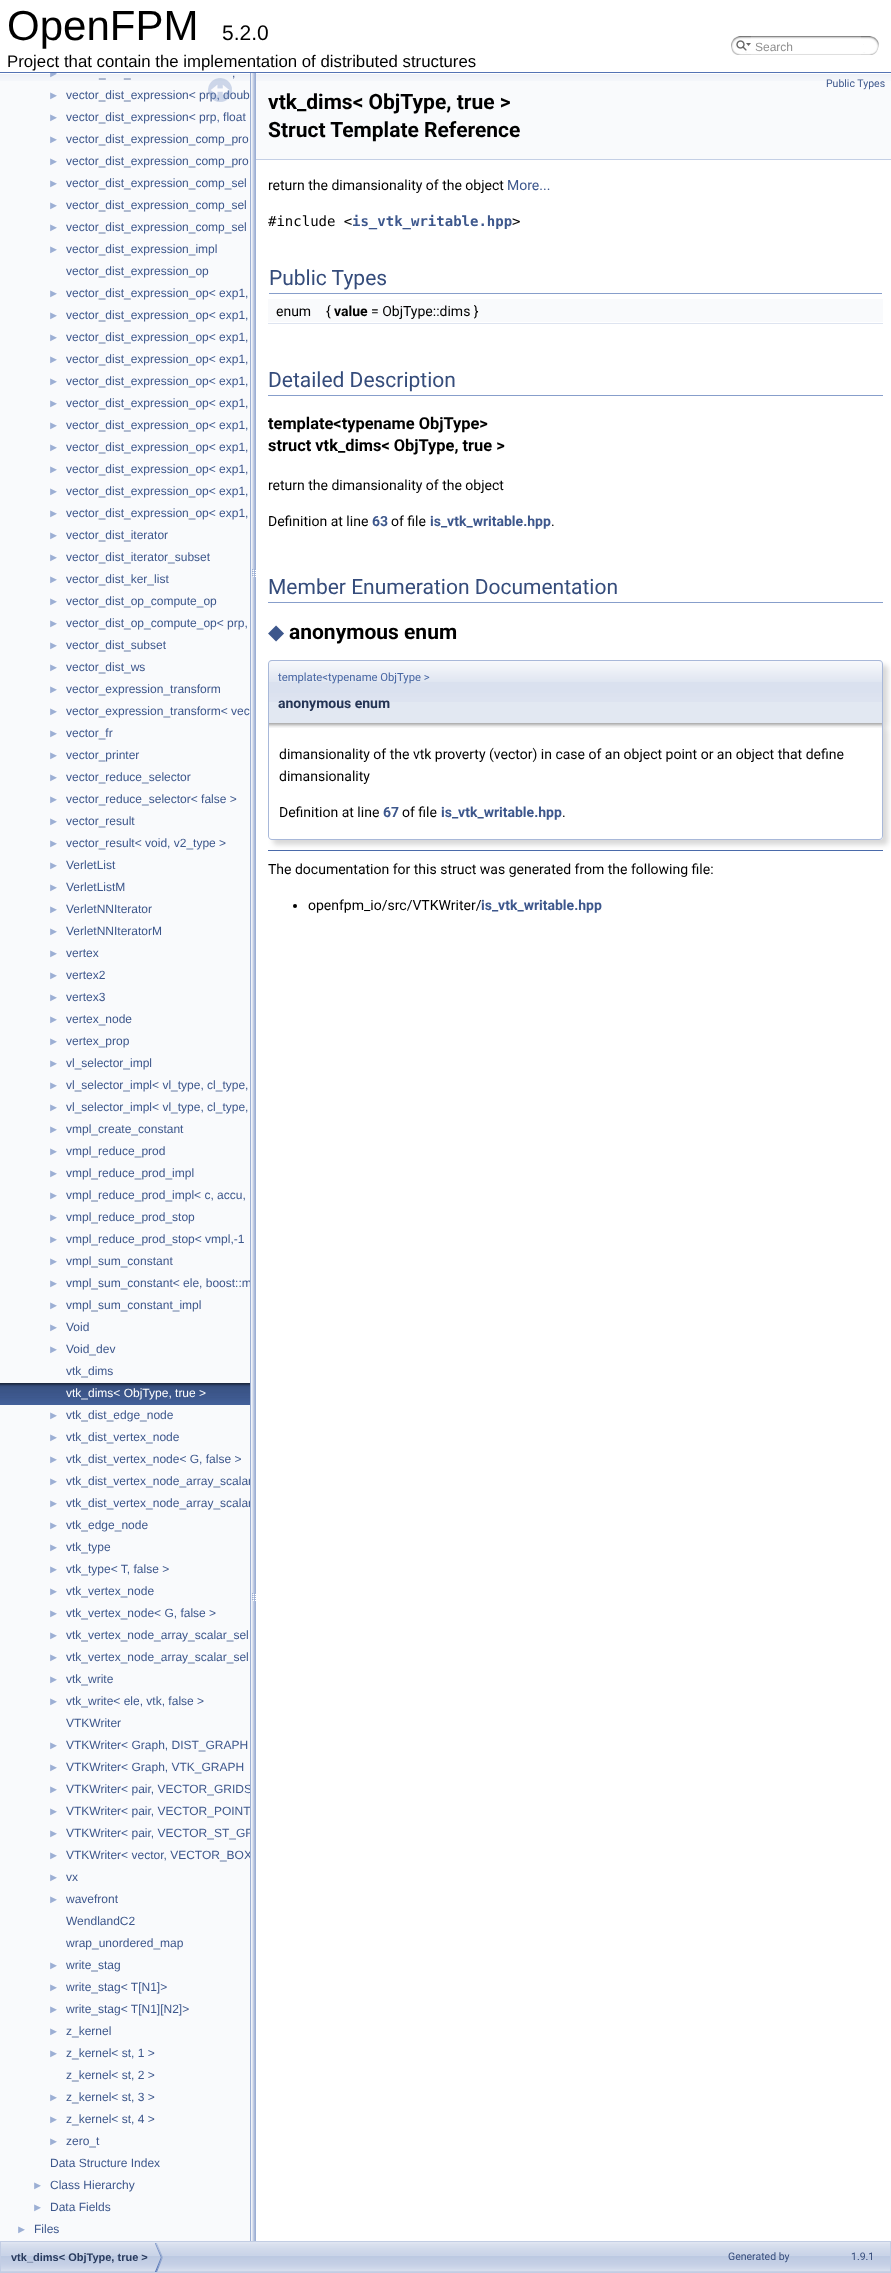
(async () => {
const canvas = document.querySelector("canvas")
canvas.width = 891
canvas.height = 2273
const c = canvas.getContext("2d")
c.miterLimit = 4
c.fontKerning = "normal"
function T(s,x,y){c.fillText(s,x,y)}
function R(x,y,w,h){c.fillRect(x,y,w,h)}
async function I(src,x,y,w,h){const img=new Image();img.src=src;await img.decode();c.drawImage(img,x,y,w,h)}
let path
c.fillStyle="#fff"
R(0,0,891,2273)
c.fillStyle="#5373b4"
R(0,72,891,1)
c.font="42px Liberation Sans"
c.fillStyle="#000"
T("OpenFPM",7,40)
c.font="21px Liberation Sans"
T("5.2.0",222,40)
c.font="16.8px Liberation Sans"
T("Project that contain the implementation of distributed structures",7,67)
await I("1.png",731,36,20,19)
await I("2.png",736,40,15,11)
await I("3.png",751,36,110,19)
c.font="12px Liberation Sans"
c.fillStyle="#909090"
T("Search",755,51)
await I("4.png",861,36,18,19)
c.fillStyle="#f9fafc"
R(0,81,250,2160)
await I("5.png",0,73,250,8)
c.save()
c.beginPath()
c.rect(0,73,250,2168)
c.clip()
c.font="11.25px Liberation Sans"
c.fillStyle="#9cafd4"
T("►",48,77)
c.restore()
c.fillStyle="#3d578c"
T("_",99,77)
T("_",124,77)
T(",",232,77)
c.font="11.25px Liberation Sans"
c.fillStyle="#9cafd4"
T("►",48,99)
c.font="12px Liberation Sans"
c.fillStyle="#3d578c"
T("vector_dist_expression< prp, doub",66,99)
c.font="11.25px Liberation Sans"
c.fillStyle="#9cafd4"
T("►",48,121)
c.font="12px Liberation Sans"
c.fillStyle="#3d578c"
T("vector_dist_expression< prp, float",66,121)
c.font="11.25px Liberation Sans"
c.fillStyle="#9cafd4"
T("►",48,143)
c.font="12px Liberation Sans"
c.fillStyle="#3d578c"
T("vector_dist_expression_comp_pro",66,143)
c.font="11.25px Liberation Sans"
c.fillStyle="#9cafd4"
T("►",48,165)
c.font="12px Liberation Sans"
c.fillStyle="#3d578c"
T("vector_dist_expression_comp_pro",66,165)
c.font="11.25px Liberation Sans"
c.fillStyle="#9cafd4"
T("►",48,187)
c.font="12px Liberation Sans"
c.fillStyle="#3d578c"
T("vector_dist_expression_comp_sel",66,187)
c.font="11.25px Liberation Sans"
c.fillStyle="#9cafd4"
T("►",48,209)
c.font="12px Liberation Sans"
c.fillStyle="#3d578c"
T("vector_dist_expression_comp_sel",66,209)
c.font="11.25px Liberation Sans"
c.fillStyle="#9cafd4"
T("►",48,231)
c.font="12px Liberation Sans"
c.fillStyle="#3d578c"
T("vector_dist_expression_comp_sel",66,231)
c.font="11.25px Liberation Sans"
c.fillStyle="#9cafd4"
T("►",48,253)
c.font="12px Liberation Sans"
c.fillStyle="#3d578c"
T("vector_dist_expression_impl",66,253)
T("vector_dist_expression_op",66,275)
c.font="11.25px Liberation Sans"
c.fillStyle="#9cafd4"
T("►",48,297)
c.font="12px Liberation Sans"
c.fillStyle="#3d578c"
T("vector_dist_expression_op< exp1,",66,297)
c.font="11.25px Liberation Sans"
c.fillStyle="#9cafd4"
T("►",48,319)
c.font="12px Liberation Sans"
c.fillStyle="#3d578c"
T("vector_dist_expression_op< exp1,",66,319)
c.font="11.25px Liberation Sans"
c.fillStyle="#9cafd4"
T("►",48,341)
c.font="12px Liberation Sans"
c.fillStyle="#3d578c"
T("vector_dist_expression_op< exp1,",66,341)
c.font="11.25px Liberation Sans"
c.fillStyle="#9cafd4"
T("►",48,363)
c.font="12px Liberation Sans"
c.fillStyle="#3d578c"
T("vector_dist_expression_op< exp1,",66,363)
c.font="11.25px Liberation Sans"
c.fillStyle="#9cafd4"
T("►",48,385)
c.font="12px Liberation Sans"
c.fillStyle="#3d578c"
T("vector_dist_expression_op< exp1,",66,385)
c.font="11.25px Liberation Sans"
c.fillStyle="#9cafd4"
T("►",48,407)
c.font="12px Liberation Sans"
c.fillStyle="#3d578c"
T("vector_dist_expression_op< exp1,",66,407)
c.font="11.25px Liberation Sans"
c.fillStyle="#9cafd4"
T("►",48,429)
c.font="12px Liberation Sans"
c.fillStyle="#3d578c"
T("vector_dist_expression_op< exp1,",66,429)
c.font="11.25px Liberation Sans"
c.fillStyle="#9cafd4"
T("►",48,451)
c.font="12px Liberation Sans"
c.fillStyle="#3d578c"
T("vector_dist_expression_op< exp1,",66,451)
c.font="11.25px Liberation Sans"
c.fillStyle="#9cafd4"
T("►",48,473)
c.font="12px Liberation Sans"
c.fillStyle="#3d578c"
T("vector_dist_expression_op< exp1,",66,473)
c.font="11.25px Liberation Sans"
c.fillStyle="#9cafd4"
T("►",48,495)
c.font="12px Liberation Sans"
c.fillStyle="#3d578c"
T("vector_dist_expression_op< exp1,",66,495)
c.font="11.25px Liberation Sans"
c.fillStyle="#9cafd4"
T("►",48,517)
c.font="12px Liberation Sans"
c.fillStyle="#3d578c"
T("vector_dist_expression_op< exp1,",66,517)
c.font="11.25px Liberation Sans"
c.fillStyle="#9cafd4"
T("►",48,539)
c.font="12px Liberation Sans"
c.fillStyle="#3d578c"
T("vector_dist_iterator",66,539)
c.font="11.25px Liberation Sans"
c.fillStyle="#9cafd4"
T("►",48,561)
c.font="12px Liberation Sans"
c.fillStyle="#3d578c"
T("vector_dist_iterator_subset",66,561)
c.font="11.25px Liberation Sans"
c.fillStyle="#9cafd4"
T("►",48,583)
c.font="12px Liberation Sans"
c.fillStyle="#3d578c"
T("vector_dist_ker_list",66,583)
c.font="11.25px Liberation Sans"
c.fillStyle="#9cafd4"
T("►",48,605)
c.font="12px Liberation Sans"
c.fillStyle="#3d578c"
T("vector_dist_op_compute_op",66,605)
c.font="11.25px Liberation Sans"
c.fillStyle="#9cafd4"
T("►",48,627)
c.font="12px Liberation Sans"
c.fillStyle="#3d578c"
T("vector_dist_op_compute_op< prp,",66,627)
c.font="11.25px Liberation Sans"
c.fillStyle="#9cafd4"
T("►",48,649)
c.font="12px Liberation Sans"
c.fillStyle="#3d578c"
T("vector_dist_subset",66,649)
c.font="11.25px Liberation Sans"
c.fillStyle="#9cafd4"
T("►",48,671)
c.font="12px Liberation Sans"
c.fillStyle="#3d578c"
T("vector_dist_ws",66,671)
c.font="11.25px Liberation Sans"
c.fillStyle="#9cafd4"
T("►",48,693)
c.font="12px Liberation Sans"
c.fillStyle="#3d578c"
T("vector_expression_transform",66,693)
c.font="11.25px Liberation Sans"
c.fillStyle="#9cafd4"
T("►",48,715)
c.font="12px Liberation Sans"
c.fillStyle="#3d578c"
T("vector_expression_transform< vec",66,715)
c.font="11.25px Liberation Sans"
c.fillStyle="#9cafd4"
T("►",48,737)
c.font="12px Liberation Sans"
c.fillStyle="#3d578c"
T("vector_fr",66,737)
c.font="11.25px Liberation Sans"
c.fillStyle="#9cafd4"
T("►",48,759)
c.font="12px Liberation Sans"
c.fillStyle="#3d578c"
T("vector_printer",66,759)
c.font="11.25px Liberation Sans"
c.fillStyle="#9cafd4"
T("►",48,781)
c.font="12px Liberation Sans"
c.fillStyle="#3d578c"
T("vector_reduce_selector",66,781)
c.font="11.25px Liberation Sans"
c.fillStyle="#9cafd4"
T("►",48,803)
c.font="12px Liberation Sans"
c.fillStyle="#3d578c"
T("vector_reduce_selector< false >",66,803)
c.font="11.25px Liberation Sans"
c.fillStyle="#9cafd4"
T("►",48,825)
c.font="12px Liberation Sans"
c.fillStyle="#3d578c"
T("vector_result",66,825)
c.font="11.25px Liberation Sans"
c.fillStyle="#9cafd4"
T("►",48,847)
c.font="12px Liberation Sans"
c.fillStyle="#3d578c"
T("vector_result< void, v2_type >",66,847)
c.font="11.25px Liberation Sans"
c.fillStyle="#9cafd4"
T("►",48,869)
c.font="12px Liberation Sans"
c.fillStyle="#3d578c"
T("VerletList",66,869)
c.font="11.25px Liberation Sans"
c.fillStyle="#9cafd4"
T("►",48,891)
c.font="12px Liberation Sans"
c.fillStyle="#3d578c"
T("VerletListM",66,891)
c.font="11.25px Liberation Sans"
c.fillStyle="#9cafd4"
T("►",48,913)
c.font="12px Liberation Sans"
c.fillStyle="#3d578c"
T("VerletNNIterator",66,913)
c.font="11.25px Liberation Sans"
c.fillStyle="#9cafd4"
T("►",48,935)
c.font="12px Liberation Sans"
c.fillStyle="#3d578c"
T("VerletNNIteratorM",66,935)
c.font="11.25px Liberation Sans"
c.fillStyle="#9cafd4"
T("►",48,957)
c.font="12px Liberation Sans"
c.fillStyle="#3d578c"
T("vertex",66,957)
c.font="11.25px Liberation Sans"
c.fillStyle="#9cafd4"
T("►",48,979)
c.font="12px Liberation Sans"
c.fillStyle="#3d578c"
T("vertex2",66,979)
c.font="11.25px Liberation Sans"
c.fillStyle="#9cafd4"
T("►",48,1001)
c.font="12px Liberation Sans"
c.fillStyle="#3d578c"
T("vertex3",66,1001)
c.font="11.25px Liberation Sans"
c.fillStyle="#9cafd4"
T("►",48,1023)
c.font="12px Liberation Sans"
c.fillStyle="#3d578c"
T("vertex_node",66,1023)
c.font="11.25px Liberation Sans"
c.fillStyle="#9cafd4"
T("►",48,1045)
c.font="12px Liberation Sans"
c.fillStyle="#3d578c"
T("vertex_prop",66,1045)
c.font="11.25px Liberation Sans"
c.fillStyle="#9cafd4"
T("►",48,1067)
c.font="12px Liberation Sans"
c.fillStyle="#3d578c"
T("vl_selector_impl",66,1067)
c.font="11.25px Liberation Sans"
c.fillStyle="#9cafd4"
T("►",48,1089)
c.font="12px Liberation Sans"
c.fillStyle="#3d578c"
T("vl_selector_impl< vl_type, cl_type,",66,1089)
c.font="11.25px Liberation Sans"
c.fillStyle="#9cafd4"
T("►",48,1111)
c.font="12px Liberation Sans"
c.fillStyle="#3d578c"
T("vl_selector_impl< vl_type, cl_type,",66,1111)
c.font="11.25px Liberation Sans"
c.fillStyle="#9cafd4"
T("►",48,1133)
c.font="12px Liberation Sans"
c.fillStyle="#3d578c"
T("vmpl_create_constant",66,1133)
c.font="11.25px Liberation Sans"
c.fillStyle="#9cafd4"
T("►",48,1155)
c.font="12px Liberation Sans"
c.fillStyle="#3d578c"
T("vmpl_reduce_prod",66,1155)
c.font="11.25px Liberation Sans"
c.fillStyle="#9cafd4"
T("►",48,1177)
c.font="12px Liberation Sans"
c.fillStyle="#3d578c"
T("vmpl_reduce_prod_impl",66,1177)
c.font="11.25px Liberation Sans"
c.fillStyle="#9cafd4"
T("►",48,1199)
c.font="12px Liberation Sans"
c.fillStyle="#3d578c"
T("vmpl_reduce_prod_impl< c, accu,",66,1199)
c.font="11.25px Liberation Sans"
c.fillStyle="#9cafd4"
T("►",48,1221)
c.font="12px Liberation Sans"
c.fillStyle="#3d578c"
T("vmpl_reduce_prod_stop",66,1221)
c.font="11.25px Liberation Sans"
c.fillStyle="#9cafd4"
T("►",48,1243)
c.font="12px Liberation Sans"
c.fillStyle="#3d578c"
T("vmpl_reduce_prod_stop< vmpl,-1",66,1243)
c.font="11.25px Liberation Sans"
c.fillStyle="#9cafd4"
T("►",48,1265)
c.font="12px Liberation Sans"
c.fillStyle="#3d578c"
T("vmpl_sum_constant",66,1265)
c.font="11.25px Liberation Sans"
c.fillStyle="#9cafd4"
T("►",48,1287)
c.font="12px Liberation Sans"
c.fillStyle="#3d578c"
T("vmpl_sum_constant< ele, boost::m",66,1287)
c.font="11.25px Liberation Sans"
c.fillStyle="#9cafd4"
T("►",48,1309)
c.font="12px Liberation Sans"
c.fillStyle="#3d578c"
T("vmpl_sum_constant_impl",66,1309)
c.font="11.25px Liberation Sans"
c.fillStyle="#9cafd4"
T("►",48,1331)
c.font="12px Liberation Sans"
c.fillStyle="#3d578c"
T("Void",66,1331)
c.font="11.25px Liberation Sans"
c.fillStyle="#9cafd4"
T("►",48,1353)
c.font="12px Liberation Sans"
c.fillStyle="#3d578c"
T("Void_dev",66,1353)
T("vtk_dims",66,1375)
await I("6.png",0,1383,250,22)
c.fillStyle="#fff"
T("vtk_dims< ObjType, true >",66,1397)
c.font="11.25px Liberation Sans"
c.fillStyle="#9cafd4"
T("►",48,1419)
c.font="12px Liberation Sans"
c.fillStyle="#3d578c"
T("vtk_dist_edge_node",66,1419)
c.font="11.25px Liberation Sans"
c.fillStyle="#9cafd4"
T("►",48,1441)
c.font="12px Liberation Sans"
c.fillStyle="#3d578c"
T("vtk_dist_vertex_node",66,1441)
c.font="11.25px Liberation Sans"
c.fillStyle="#9cafd4"
T("►",48,1463)
c.font="12px Liberation Sans"
c.fillStyle="#3d578c"
T("vtk_dist_vertex_node< G, false >",66,1463)
c.font="11.25px Liberation Sans"
c.fillStyle="#9cafd4"
T("►",48,1485)
c.font="12px Liberation Sans"
c.fillStyle="#3d578c"
T("vtk_dist_vertex_node_array_scalar",66,1485)
c.font="11.25px Liberation Sans"
c.fillStyle="#9cafd4"
T("►",48,1507)
c.font="12px Liberation Sans"
c.fillStyle="#3d578c"
T("vtk_dist_vertex_node_array_scalar",66,1507)
c.font="11.25px Liberation Sans"
c.fillStyle="#9cafd4"
T("►",48,1529)
c.font="12px Liberation Sans"
c.fillStyle="#3d578c"
T("vtk_edge_node",66,1529)
c.font="11.25px Liberation Sans"
c.fillStyle="#9cafd4"
T("►",48,1551)
c.font="12px Liberation Sans"
c.fillStyle="#3d578c"
T("vtk_type",66,1551)
c.font="11.25px Liberation Sans"
c.fillStyle="#9cafd4"
T("►",48,1573)
c.font="12px Liberation Sans"
c.fillStyle="#3d578c"
T("vtk_type< T, false >",66,1573)
c.font="11.25px Liberation Sans"
c.fillStyle="#9cafd4"
T("►",48,1595)
c.font="12px Liberation Sans"
c.fillStyle="#3d578c"
T("vtk_vertex_node",66,1595)
c.font="11.25px Liberation Sans"
c.fillStyle="#9cafd4"
T("►",48,1617)
c.font="12px Liberation Sans"
c.fillStyle="#3d578c"
T("vtk_vertex_node< G, false >",66,1617)
c.font="11.25px Liberation Sans"
c.fillStyle="#9cafd4"
T("►",48,1639)
c.font="12px Liberation Sans"
c.fillStyle="#3d578c"
T("vtk_vertex_node_array_scalar_sel",66,1639)
c.font="11.25px Liberation Sans"
c.fillStyle="#9cafd4"
T("►",48,1661)
c.font="12px Liberation Sans"
c.fillStyle="#3d578c"
T("vtk_vertex_node_array_scalar_sel",66,1661)
c.font="11.25px Liberation Sans"
c.fillStyle="#9cafd4"
T("►",48,1683)
c.font="12px Liberation Sans"
c.fillStyle="#3d578c"
T("vtk_write",66,1683)
c.font="11.25px Liberation Sans"
c.fillStyle="#9cafd4"
T("►",48,1705)
c.font="12px Liberation Sans"
c.fillStyle="#3d578c"
T("vtk_write< ele, vtk, false >",66,1705)
T("VTKWriter",66,1727)
c.font="11.25px Liberation Sans"
c.fillStyle="#9cafd4"
T("►",48,1749)
c.font="12px Liberation Sans"
c.fillStyle="#3d578c"
T("VTKWriter< Graph, DIST_GRAPH",66,1749)
c.font="11.25px Liberation Sans"
c.fillStyle="#9cafd4"
T("►",48,1771)
c.font="12px Liberation Sans"
c.fillStyle="#3d578c"
T("VTKWriter< Graph, VTK_GRAPH",66,1771)
c.font="11.25px Liberation Sans"
c.fillStyle="#9cafd4"
T("►",48,1793)
c.font="12px Liberation Sans"
c.fillStyle="#3d578c"
T("VTKWriter< pair, VECTOR_GRIDS",66,1793)
c.font="11.25px Liberation Sans"
c.fillStyle="#9cafd4"
T("►",48,1815)
c.font="12px Liberation Sans"
c.fillStyle="#3d578c"
T("VTKWriter< pair, VECTOR_POINT",66,1815)
c.font="11.25px Liberation Sans"
c.fillStyle="#9cafd4"
T("►",48,1837)
c.font="12px Liberation Sans"
c.fillStyle="#3d578c"
T("VTKWriter< pair, VECTOR_ST_GR",66,1837)
c.font="11.25px Liberation Sans"
c.fillStyle="#9cafd4"
T("►",48,1859)
c.font="12px Liberation Sans"
c.fillStyle="#3d578c"
T("VTKWriter< vector, VECTOR_BOX",66,1859)
c.font="11.25px Liberation Sans"
c.fillStyle="#9cafd4"
T("►",48,1881)
c.font="12px Liberation Sans"
c.fillStyle="#3d578c"
T("vx",66,1881)
c.font="11.25px Liberation Sans"
c.fillStyle="#9cafd4"
T("►",48,1903)
c.font="12px Liberation Sans"
c.fillStyle="#3d578c"
T("wavefront",66,1903)
T("WendlandC2",66,1925)
T("wrap_unordered_map",66,1947)
c.font="11.25px Liberation Sans"
c.fillStyle="#9cafd4"
T("►",48,1969)
c.font="12px Liberation Sans"
c.fillStyle="#3d578c"
T("write_stag",66,1969)
c.font="11.25px Liberation Sans"
c.fillStyle="#9cafd4"
T("►",48,1991)
c.font="12px Liberation Sans"
c.fillStyle="#3d578c"
T("write_stag< T[N1]>",66,1991)
c.font="11.25px Liberation Sans"
c.fillStyle="#9cafd4"
T("►",48,2013)
c.font="12px Liberation Sans"
c.fillStyle="#3d578c"
T("write_stag< T[N1][N2]>",66,2013)
c.font="11.25px Liberation Sans"
c.fillStyle="#9cafd4"
T("►",48,2035)
c.font="12px Liberation Sans"
c.fillStyle="#3d578c"
T("z_kernel",66,2035)
c.font="11.25px Liberation Sans"
c.fillStyle="#9cafd4"
T("►",48,2057)
c.font="12px Liberation Sans"
c.fillStyle="#3d578c"
T("z_kernel< st, 1 >",66,2057)
T("z_kernel< st, 2 >",66,2079)
c.font="11.25px Liberation Sans"
c.fillStyle="#9cafd4"
T("►",48,2101)
c.font="12px Liberation Sans"
c.fillStyle="#3d578c"
T("z_kernel< st, 3 >",66,2101)
c.font="11.25px Liberation Sans"
c.fillStyle="#9cafd4"
T("►",48,2123)
c.font="12px Liberation Sans"
c.fillStyle="#3d578c"
T("z_kernel< st, 4 >",66,2123)
c.font="11.25px Liberation Sans"
c.fillStyle="#9cafd4"
T("►",48,2145)
c.font="12px Liberation Sans"
c.fillStyle="#3d578c"
T("zero_t",66,2145)
T("Data Structure Index",50,2167)
c.font="11.25px Liberation Sans"
c.fillStyle="#9cafd4"
T("►",32,2189)
c.font="12px Liberation Sans"
c.fillStyle="#3d578c"
T("Class Hierarchy",50,2189)
c.font="11.25px Liberation Sans"
c.fillStyle="#9cafd4"
T("►",32,2211)
c.font="12px Liberation Sans"
c.fillStyle="#3d578c"
T("Data Fields",50,2211)
c.font="11.25px Liberation Sans"
c.fillStyle="#9cafd4"
T("►",16,2233)
c.font="12px Liberation Sans"
c.fillStyle="#3d578c"
T("Files",34,2233)
await I("7.png",208,78,24,24)
await I("8.png",250,73,6,2168)
c.fillStyle="#f9fafc"
R(256,81,635,78)
await I("9.png",256,73,635,8)
c.fillStyle="#c4cfe5"
R(256,159,635,1)
c.font="10.5px Roboto"
c.fillStyle="#3d578c"
T("Public Types",826,87)
c.font="bold 21px Roboto"
c.fillStyle="#000"
T("vtk_dims< ObjType, true >",268,109)
T("Struct Template Reference",268,137)
c.font="14px Roboto"
T("return the dimansionality of the object",268,190)
c.fillStyle="#3d578c"
T("More...",507,190)
c.font="14px DejaVu Sans Mono"
c.fillStyle="#000"
T("#include <",268,226)
c.font="bold 14px DejaVu Sans Mono"
c.fillStyle="#3d578c"
T("is_vtk_writable.hpp",352,226)
c.font="14px DejaVu Sans Mono"
c.fillStyle="#000"
T(">",512,226)
c.fillStyle="#879ecb"
R(269,293,613,1)
c.font="21px Roboto"
c.fillStyle="#354c7b"
T("Public Types",269,285)
c.fillStyle="#f9fafc"
R(268,299,615,23)
c.font="14px Roboto"
c.fillStyle="#000"
T("enum",276,316)
T("{",326,316)
c.font="bold 14px Roboto"
T("value",334,316)
c.font="14px Roboto"
T("= ObjType::dims }",371,316)
c.fillStyle="#dee4f0"
R(268,323,615,1)
c.fillStyle="#879ecb"
R(268,395,615,1)
c.font="21px Roboto"
c.fillStyle="#354c7b"
T("Detailed Description",268,387)
c.font="bold 16.4px Roboto"
c.fillStyle="#000"
T("template<typename ObjType>",268,429)
T("struct vtk_dims< ObjType, true >",268,451)
c.font="14px Roboto"
T("return the dimansionality of the object",268,490)
T("Definition at line",268,526)
c.font="bold 14px Roboto"
c.fillStyle="#3d578c"
T("63",372,526)
c.font="14px Roboto"
c.fillStyle="#000"
T("of file",391,526)
c.font="bold 14px Roboto"
c.fillStyle="#3d578c"
T("is_vtk_writable.hpp",430,526)
c.font="14px Roboto"
c.fillStyle="#000"
T(".",551,526)
c.fillStyle="#879ecb"
R(268,602,615,1)
c.font="21px Roboto"
c.fillStyle="#354c7b"
T("Member Enumeration Documentation",268,594)
c.font="21px DejaVu Sans"
c.fillStyle="#3d578c"
T("◆",268,639)
c.font="bold 21px Roboto"
c.fillStyle="#000"
T("anonymous enum",289,639)
c.fillStyle="#00000026"
c.filter="blur(2.5px)"
c.beginPath()
c.roundRect(273,665,615,63,4)
c.fill()
c.filter="none"
c.fillStyle="#e2e8f2"
c.beginPath()
c.roundRect(268,660,615,63,[4,4,0,0])
c.fill()
await I("10.png",268,661,615,41)
c.fillStyle="#a8b8d9"
path = new Path2D("M272 660h607c2 0 4 2 4 4v59h-615v-59c0-2 2-4 4-4zm0 1h607c2 0 3 1 3 3v59h-613v-59c0-2 1-3 3-3z")
c.fill(path,"evenodd")
c.font="11.25px Roboto"
c.fillStyle="#4665a2"
T("template<typename ObjType >",278,681)
c.font="bold 14px Roboto"
c.fillStyle="#253555"
T("anonymous enum",278,708)
c.fillStyle="#00000026"
c.filter="blur(2.5px)"
c.beginPath()
c.roundRect(273,728,615,117,4)
c.fill()
c.filter="none"
c.fillStyle="#fff"
c.beginPath()
c.roundRect(268,723,615,117,[0,0,4,4])
c.fill()
await I("11.png",269,723,613,5)
c.fillStyle="#a8b8d9"
path = new Path2D("M268 723h615v113c0 2-2 4-4 4h-607c-2 0-4-2-4-4zm1 0h613v113c0 2-1 3-3 3h-607c-2 0-3-1-3-3z")
c.fill(path,"evenodd")
c.font="14px Roboto"
c.fillStyle="#000"
T("dimansionality of the vtk proverty (vector) in case of an object point or an object that define",279,759)
T("dimansionality",279,781)
T("Definition at line",279,817)
c.font="bold 14px Roboto"
c.fillStyle="#3d578c"
T("67",383,817)
c.font="14px Roboto"
c.fillStyle="#000"
T("of file",402,817)
c.font="bold 14px Roboto"
c.fillStyle="#3d578c"
T("is_vtk_writable.hpp",441,817)
c.font="14px Roboto"
c.fillStyle="#000"
T(".",562,817)
c.fillStyle="#4a6aaa"
R(268,850,615,1)
c.fillStyle="#000"
T("The documentation for this struct was generated from the following file:",268,874)
c.beginPath()
c.arc(295,906,2,0,7)
c.fill()
T("openfpm_io/src/VTKWriter/",308,910)
c.font="bold 14px Roboto"
c.fillStyle="#3d578c"
T("is_vtk_writable.hpp",481,910)
await I("12.png",1,2242,889,30)
c.strokeStyle="#c2cde4"
c.strokeRect(.5,2241.5,890,31)
await I("13.png",155,2243,8,29)
c.font="bold 11px Liberation Sans"
c.fillStyle="#283a5d"
T("vtk_dims< ObjType, true >",11,2261)
c.font="10.5px Roboto"
c.fillStyle="#354c7b"
T("Generated by",728,2260)
T("1.9.1",851,2260)
})()
